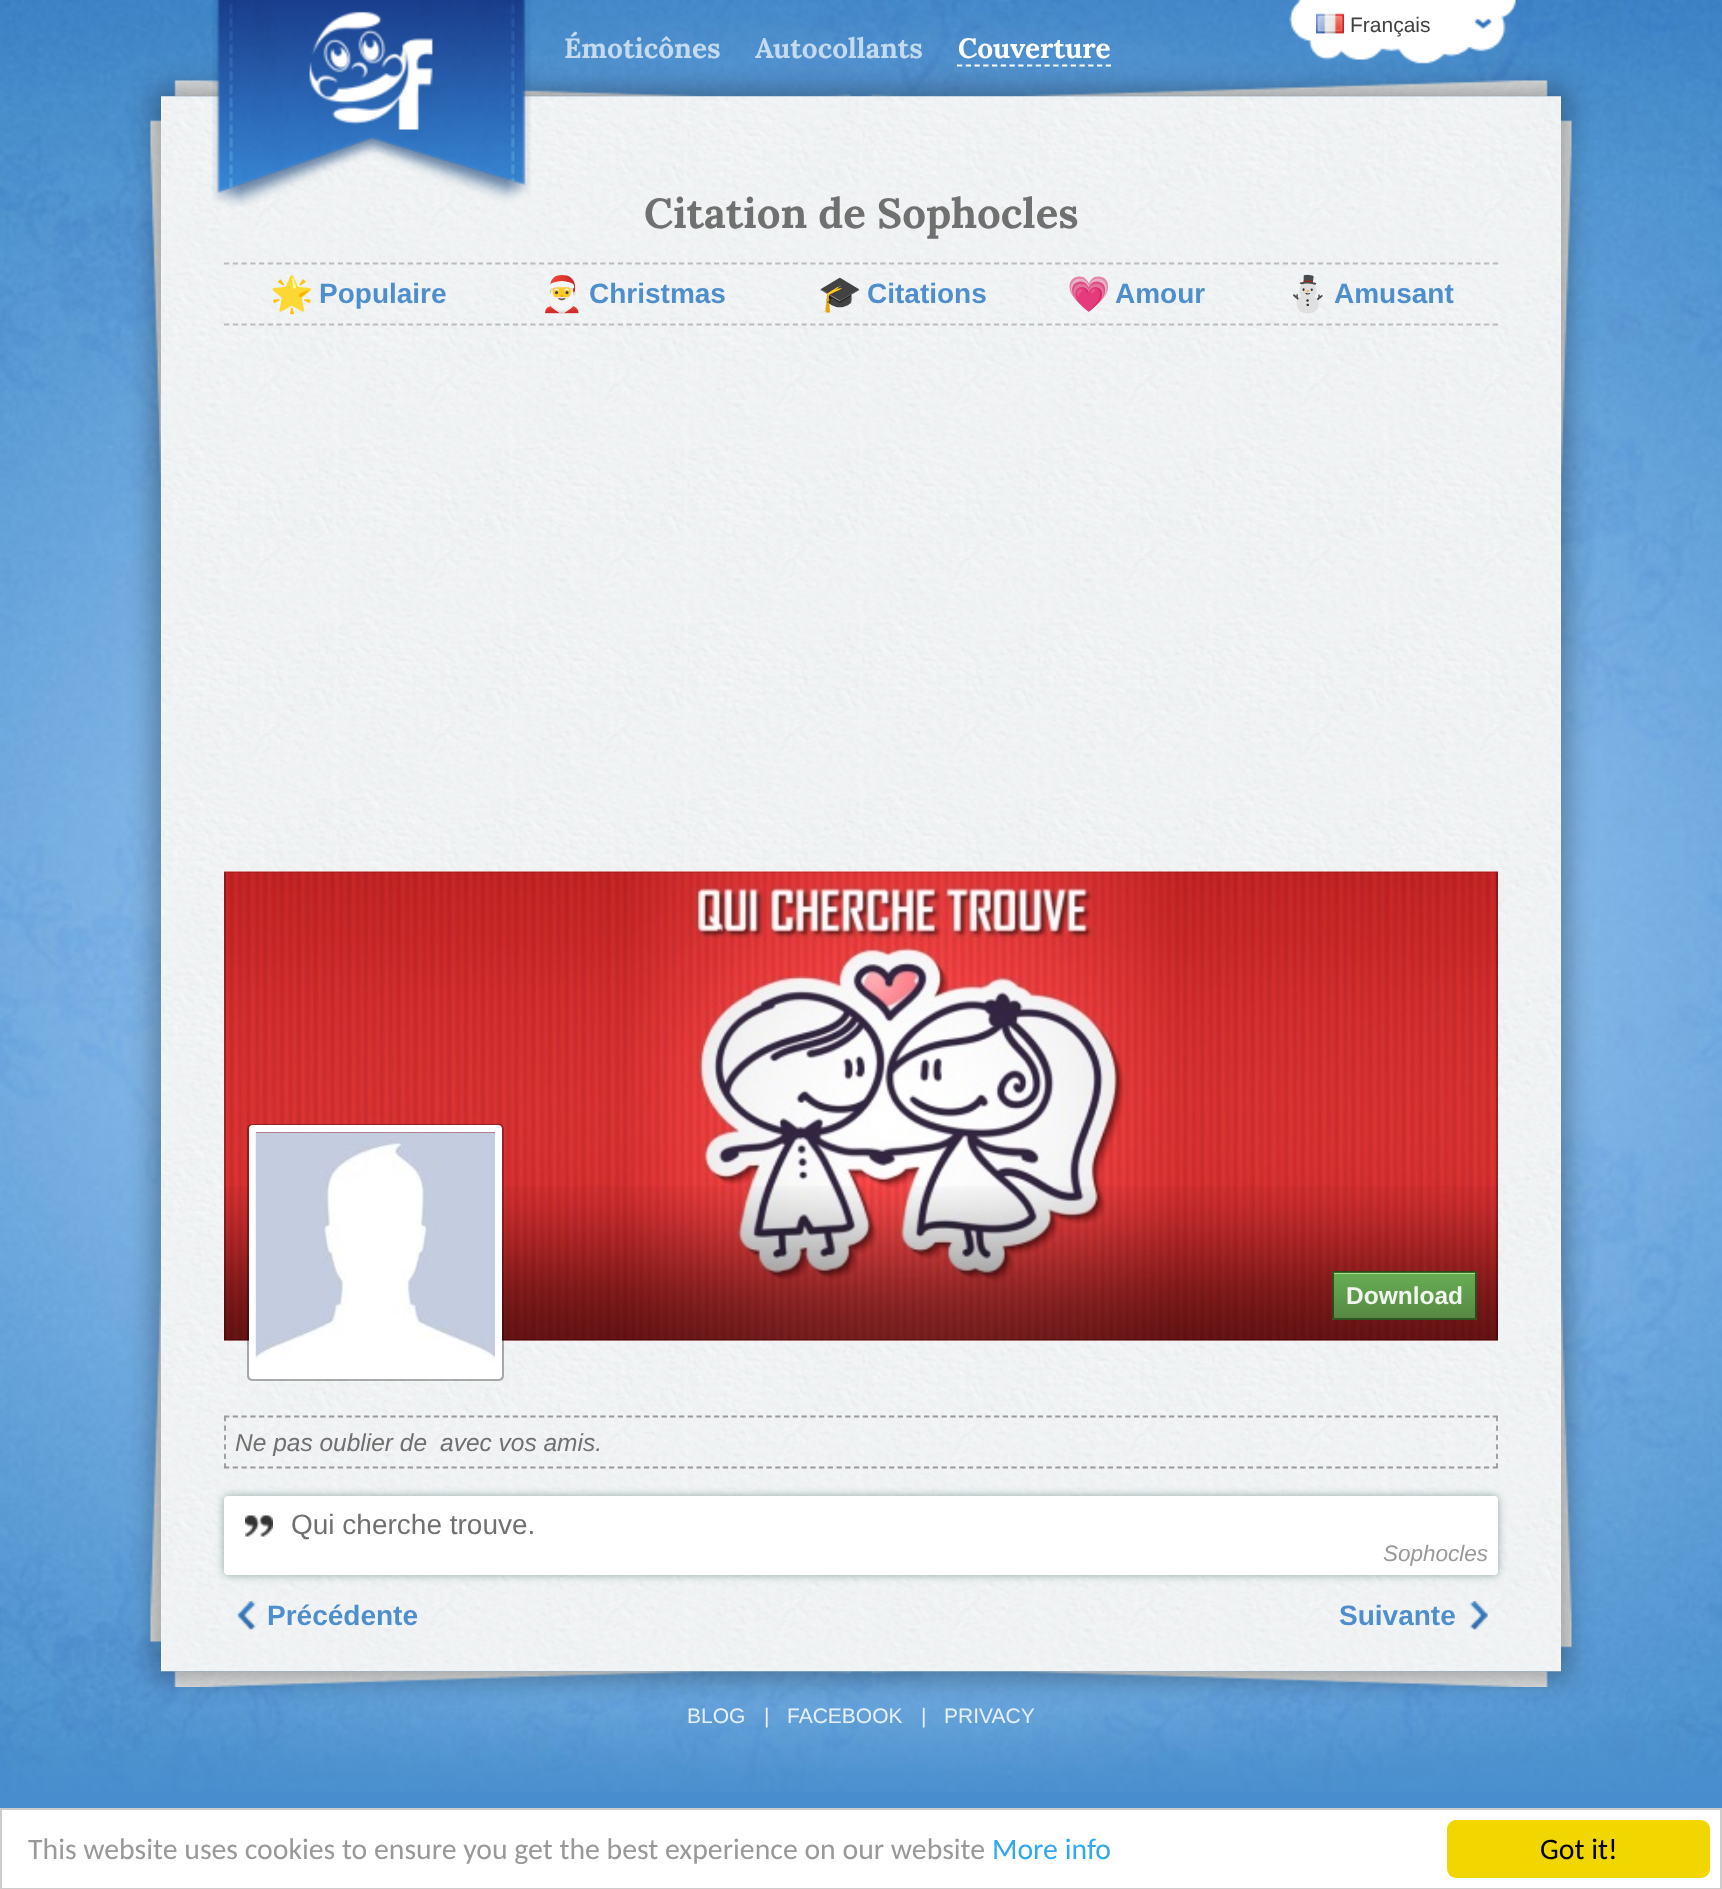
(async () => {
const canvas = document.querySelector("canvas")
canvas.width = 1722
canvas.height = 1889
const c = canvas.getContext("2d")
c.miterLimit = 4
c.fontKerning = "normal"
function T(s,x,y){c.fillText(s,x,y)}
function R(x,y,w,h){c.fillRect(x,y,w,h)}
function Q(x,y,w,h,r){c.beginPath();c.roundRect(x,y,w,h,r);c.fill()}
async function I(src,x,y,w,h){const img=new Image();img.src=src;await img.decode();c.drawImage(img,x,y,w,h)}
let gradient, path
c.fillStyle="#488ece"
R(0,0,1722,1889)
await I("1.png",0,0,1722,1792)
await I("7.png",150,80,701,446)
await I("8.png",871,80,701,447)
await I("9.png",150,1237,701,450)
await I("10.png",871,1240,701,447)
c.fillStyle="#0000004d"
c.filter="blur(13px)"
c.beginPath()
c.rect(154,89,1414,1589)
c.fill()
c.filter="none"
await I("6.png",161,96,1400,1576)
await I("2.png",212,0,319,207)
await I("3.png",1289,0,227,64)
await I("4.png",1316,13,28,21)
c.font="21px Liberation Sans"
c.fillStyle="#414141"
T("Français",1350,32)
await I("5.png",1474,18,18,11)
c.font="bold 28px Lora"
c.fillStyle="#c4daee"
T("Émoticônes",564,58)
T("Autocollants",755,58)
c.fillStyle="#fff"
T("Couverture",958,58)
path = new Path2D("M957 65.5h154")
c.strokeStyle="#fff"
c.lineWidth=1.8
c.setLineDash([5.25,3.5])
c.stroke(path)
c.font="bold 42px Lora"
c.fillStyle="#707070"
T("Citation de Sophocles",644,228)
path = new Path2D("M224 263.5h1274")
c.strokeStyle="#bbb"
c.stroke(path)
path = new Path2D("M224 324.5h1274")
c.stroke(path)
c.font="bold 35px Noto Color Emoji"
c.fillStyle="#4f8ecd"
T("🌟",270,306)
c.font="bold 28px Liberation Sans"
T("Populaire",319,303)
c.font="bold 35px Noto Color Emoji"
T("🎅",540,306)
c.font="bold 28px Liberation Sans"
T("Christmas",589,303)
c.font="bold 35px Noto Color Emoji"
T("🎓",818,306)
c.font="bold 28px Liberation Sans"
T("Citations",867,303)
c.font="bold 35px Noto Color Emoji"
T("💗",1067,306)
c.font="bold 28px Liberation Sans"
T("Amour",1115,303)
c.font="bold 35px Noto Color Emoji"
T("⛄",1286,306)
c.font="bold 28px Liberation Sans"
T("Amusant",1334,303)
await I("11.png",224,871,1274,470)
c.fillStyle="#0000001a"
path = new Path2D("M224 872h1274l-2 1h-1270z")
c.fill(path)
c.fillStyle="#00000040"
path = new Path2D("M1498 872v468l-2-1v-466z")
c.fill(path)
path = new Path2D("M1498 1340h-1274l2-1h1270z")
c.fill(path)
path = new Path2D("M224 1340v-468l2 1v466z")
c.fill(path)
await I("13.png",224,1186,1274,155)
c.fillStyle="#0000004d"
Q(247,1124,257,257,5)
c.beginPath()
c.roundRect(252.5,1128.5,246,247,.5)
c.strokeStyle="#fff"
c.lineWidth=7
c.setLineDash([])
c.stroke()
await I("12.png",255,1132,241,240)
c.save()
c.beginPath()
c.roundRect(1332,1271,145,49,2)
c.clip()
gradient = c.createLinearGradient(1404,1227,1404,1272)
gradient.addColorStop(0,"#67ae55")
gradient.addColorStop(1,"#578843")
c.fillStyle = gradient
R(1332,1271,145,1)
c.restore()
gradient = c.createLinearGradient(1404,1272,1404,1318)
gradient.addColorStop(0,"#67ae55")
gradient.addColorStop(1,"#578843")
c.fillStyle = gradient
R(1332,1272,145,46)
gradient = c.createLinearGradient(1404,1318,1404,1363)
gradient.addColorStop(0,"#67ae55")
gradient.addColorStop(1,"#578843")
c.fillStyle = gradient
c.beginPath()
c.roundRect(1332,1318,145,2,[0,0,2,2])
c.fill()
c.fillStyle="#a4e388"
R(1334,1272,141,2)
c.beginPath()
c.roundRect(1333,1272,143,47,1)
c.strokeStyle="#172f07b3"
c.lineWidth=2
c.stroke()
c.font="bold 24.5px Liberation Sans"
c.fillStyle="#eff5ed"
T("Download",1346,1304)
path = new Path2D("M224 1416.5h1274")
c.strokeStyle="#999"
c.lineWidth=1.8
c.setLineDash([5.25,3.5])
c.stroke(path)
path = new Path2D("M1497 1416v52")
c.setLineDash([5.25,4.2])
c.stroke(path)
path = new Path2D("M224 1467.5h1274")
c.setLineDash([5.25,3.5])
c.stroke(path)
path = new Path2D("M225 1416v52")
c.setLineDash([5.25,4.2])
c.stroke(path)
c.font="italic 24.5px Liberation Sans"
c.fillStyle="#707070"
T("Ne pas oublier de",235,1451)
T("avec vos amis.",440,1451)
c.fillStyle="#00323266"
c.filter="blur(4.5px)"
c.beginPath()
c.roundRect(224,1496,1274,79,4)
c.fill()
c.filter="none"
c.fillStyle="#fff"
Q(224,1496,1274,79,4)
await I("14.png",245,1515,28,22)
c.font="28px Liberation Sans"
c.fillStyle="#707070"
T("Qui cherche trouve.",291,1534)
c.font="italic 22.5px Liberation Sans"
c.fillStyle="#999"
T("Sophocles",1383,1561)
await I("15.png",237,1601,19,29)
c.font="bold 28px Liberation Sans"
c.fillStyle="#4f8ecd"
T("Précédente",267,1625)
T("Suivantе",1339,1625)
await I("16.png",1469,1601,19,29)
c.font="21px Liberation Sans"
c.fillStyle="#e7f0f9"
T("BLOG",687,1723)
T("|",764,1723)
T("FACEBOOK",787,1723)
T("|",921,1723)
T("PRIVACY",944,1723)
c.fillStyle="#fff"
c.beginPath()
c.rect(1,1809,1720,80)
c.fill()
c.strokeStyle="#ccc"
c.lineWidth=2
c.setLineDash([])
c.stroke()
c.font="29.75px Carlito"
c.fillStyle="#999"
T("This website uses cookies to ensure you get the best experience on our website",28,1859)
c.fillStyle="#31a8f0"
T("More info",992,1859)
c.fillStyle="#f1d600"
Q(1447,1820,263,58,9)
c.fillStyle="#000"
T("Got it!",1540,1859)
})()
